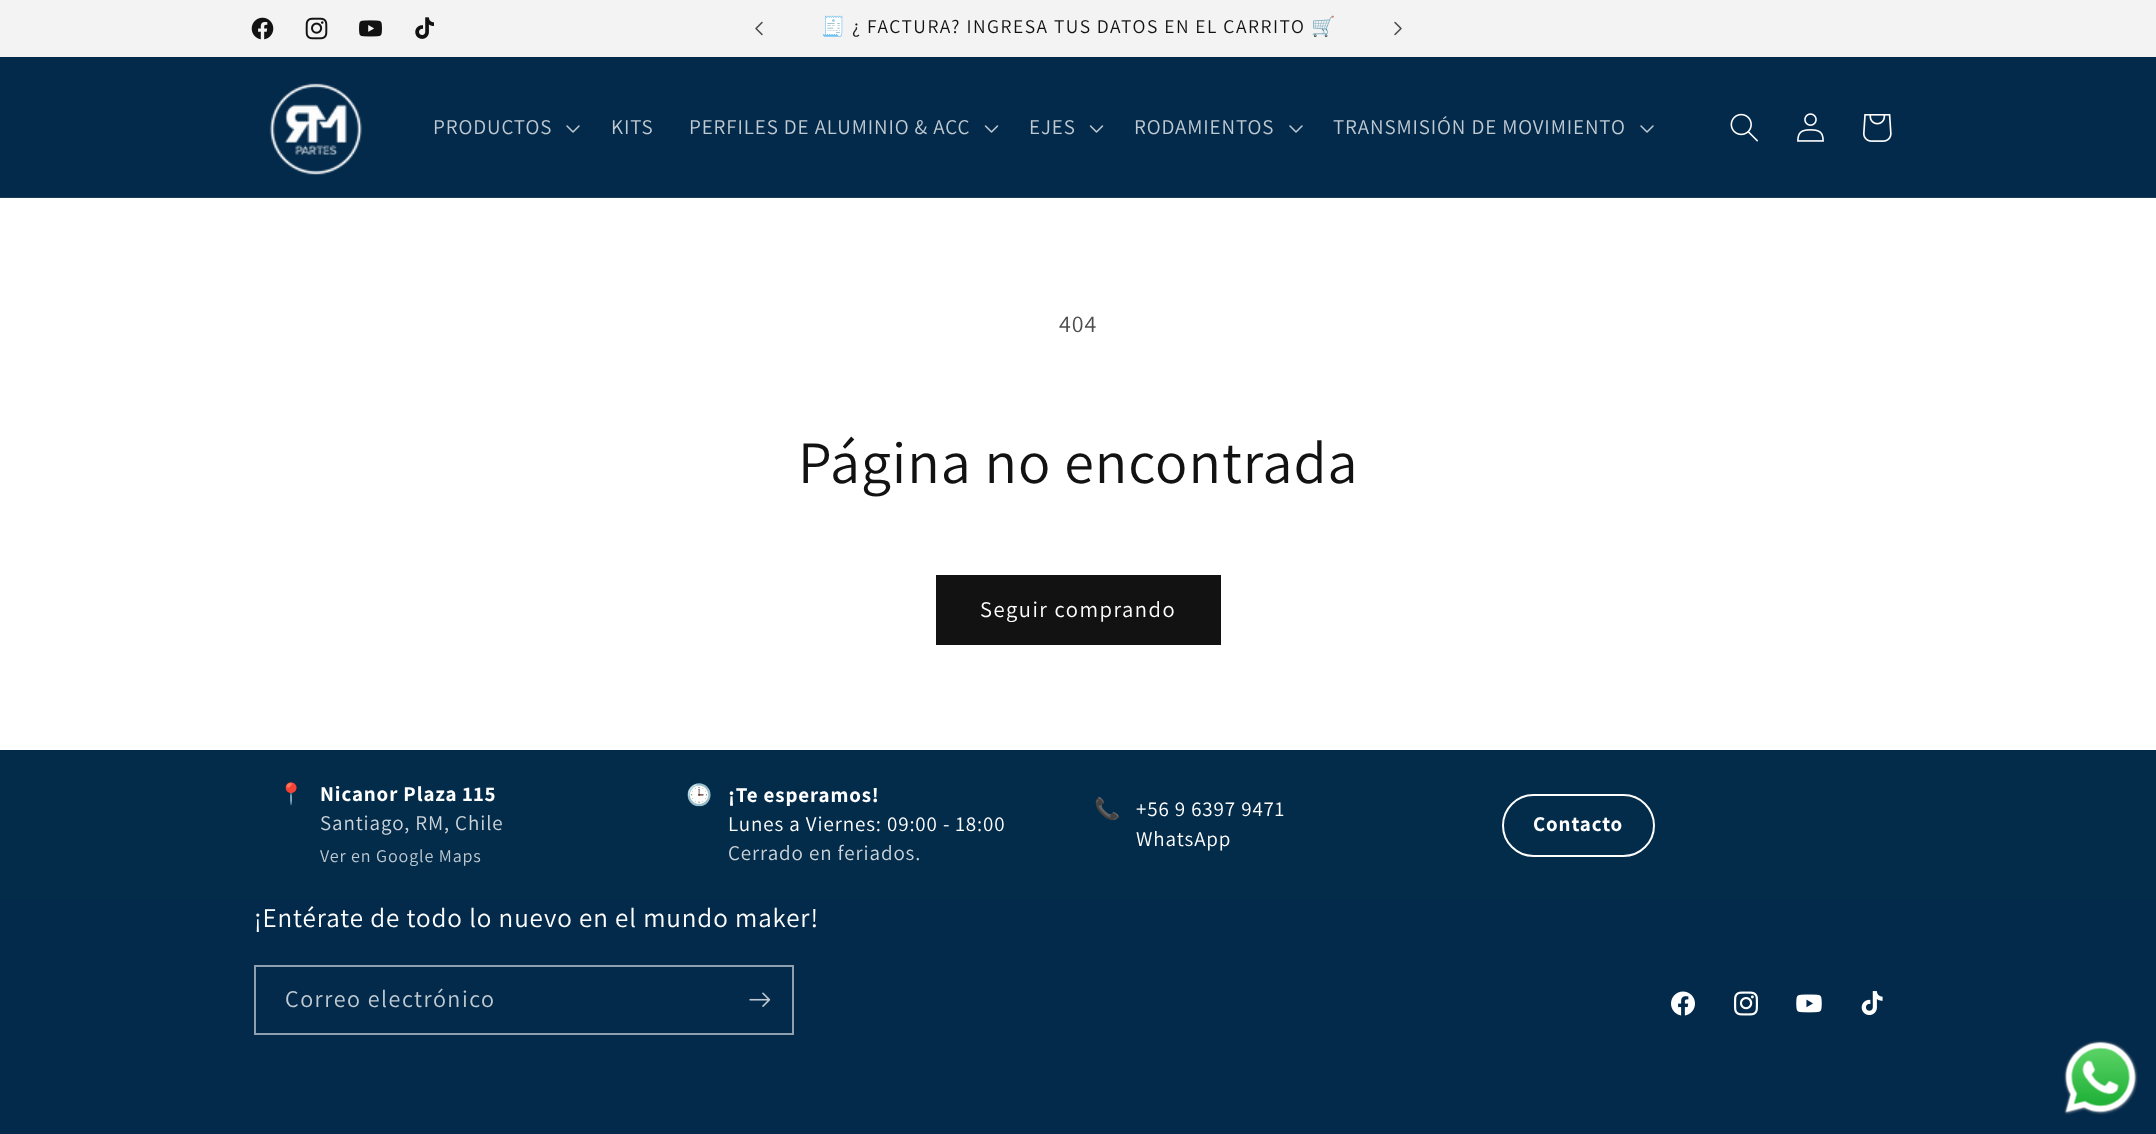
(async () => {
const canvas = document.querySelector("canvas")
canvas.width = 2156
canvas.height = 1134
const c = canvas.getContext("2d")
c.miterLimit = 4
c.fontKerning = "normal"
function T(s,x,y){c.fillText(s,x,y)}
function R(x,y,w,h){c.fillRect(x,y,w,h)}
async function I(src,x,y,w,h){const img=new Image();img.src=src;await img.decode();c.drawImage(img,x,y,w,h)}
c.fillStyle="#fff"
R(0,0,2156,1134)
c.fillStyle="#f3f3f3"
R(0,0,2156,57)
await I("1.png",251,17,23,23)
await I("2.png",305,17,23,23)
await I("3.png",359,20,23,17)
await I("4.png",415,17,19,22)
await I("5.png",755,21,8,15)
c.letterSpacing="1.5px"
c.font="19.5px Noto Color Emoji"
c.fillStyle="#121212"
T("🧾",821,33)
c.font="19.5px Assistant"
T("¿ FACTURA? INGRESA TUS DATOS EN EL CARRITO",852,33)
c.font="19.5px Noto Color Emoji"
T("🛒",1311,33)
await I("6.png",1394,21,8,15)
c.fillStyle="#032a4b"
R(0,57,2156,140)
c.fillStyle="#173b59"
R(0,197,2156,1)
await I("7.png",269,83,93,92)
c.letterSpacing="0.9px"
c.font="21px Assistant"
c.fillStyle="#c0cad2"
T("PRODUCTOS",433,134)
await I("8.png",566,125,14,8)
T("KITS",611,134)
T("PERFILES DE ALUMINIO & ACC",689,134)
await I("9.png",984,125,15,8)
T("EJES",1029,134)
await I("9.png",1089,125,15,8)
T("RODAMIENTOS",1134,134)
await I("8.png",1289,125,14,8)
T("TRANSMISIÓN DE MOVIMIENTO",1333,134)
await I("8.png",1640,125,14,8)
await I("10.png",1730,113,28,29)
await I("11.png",1797,113,27,29)
await I("12.png",1863,114,29,28)
c.font="24px Assistant"
c.fillStyle="#4d4d4d"
T("404",1059,332)
c.font="60px Assistant"
c.fillStyle="#121212"
T("Página no encontrada",798,483)
R(936,575,285,70)
c.letterSpacing="1.5px"
c.font="22.5px Assistant"
c.fillStyle="#fff"
T("Seguir comprando",980,617)
c.fillStyle="#032b4a"
R(0,750,2156,150)
c.letterSpacing="0.9px"
c.font="21px Noto Color Emoji"
c.fillStyle="#fff"
T("📍",278,801)
c.font="bold 21px Assistant"
T("Nicanor Plaza 115",320,801)
c.font="21px Assistant"
c.fillStyle="#cdd5db"
T("Santiago, RM, Chile",320,830)
c.font="18px Assistant"
c.fillStyle="#c0cad2"
T("Ver en Google Maps",320,862)
c.font="21px Noto Color Emoji"
c.fillStyle="#fff"
T("🕒",686,802)
c.font="bold 21px Assistant"
T("¡Te esperamos!",728,802)
c.font="21px Assistant"
T("Lunes a Viernes: 09:00 - 18:00",728,831)
c.fillStyle="#cdd5db"
T("Cerrado en feriados.",728,860)
c.font="21px Noto Color Emoji"
c.fillStyle="#fff"
T("📞",1094,816)
c.font="21px Assistant"
T("+56 9 6397 9471",1136,816)
T("WhatsApp",1136,846)
c.beginPath()
c.roundRect(1503,795,151,61,30.5)
c.strokeStyle="#fff"
c.lineWidth=2
c.stroke()
c.font="bold 21px Assistant"
T("Contacto",1533,831)
c.fillStyle="#032a4b"
R(0,900,2156,234)
c.font="27px Assistant"
c.fillStyle="#fff"
T("¡Entérate de todo lo nuevo en el mundo maker!",254,927)
c.strokeStyle="#8e9fae"
c.strokeRect(255,966,538,68)
c.letterSpacing="1.5px"
c.font="24px Assistant"
c.fillStyle="#c0cad2"
T("Correo electrónico",285,1007)
await I("13.png",749,992,22,15)
await I("14.png",1671,991,24,25)
await I("15.png",1734,991,24,25)
await I("16.png",1796,994,26,19)
await I("17.png",1861,991,22,25)
await I("18.png",2063,1040,75,75)
})()
